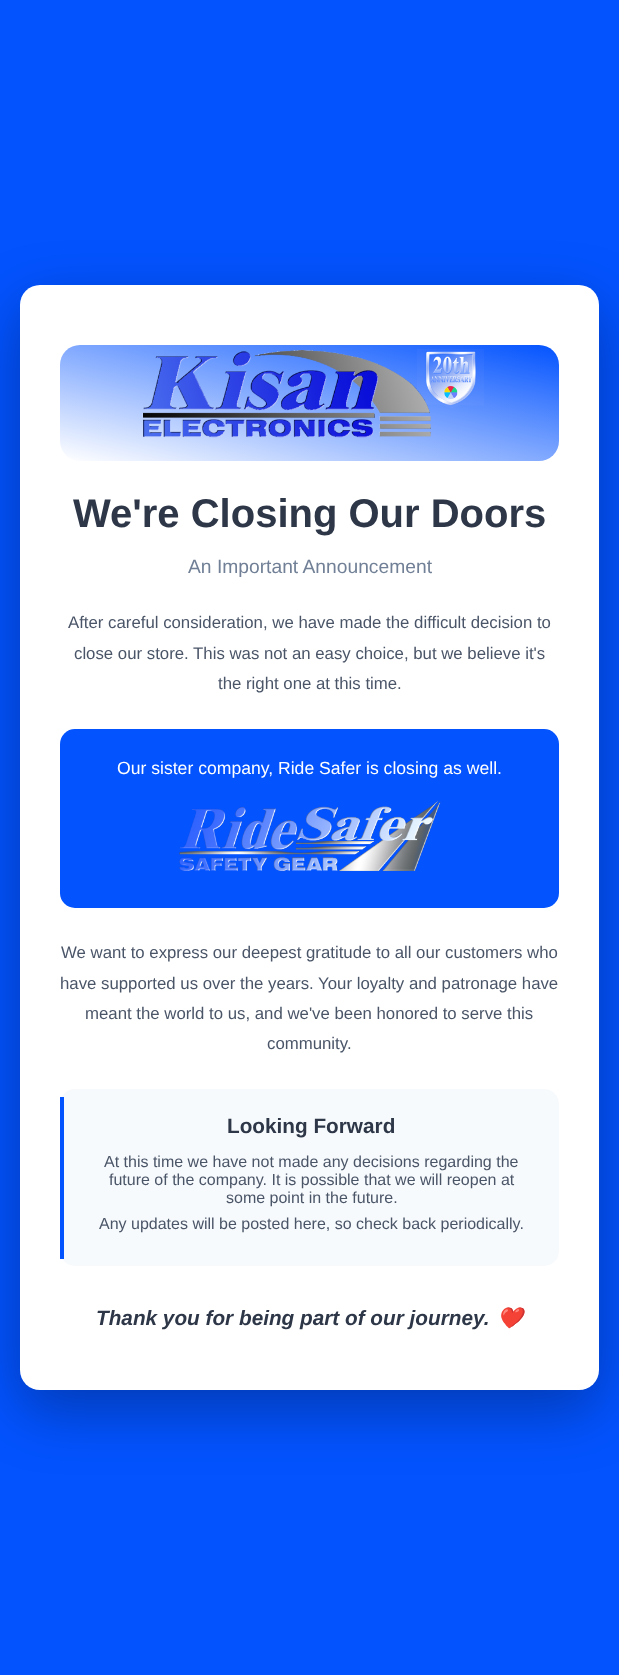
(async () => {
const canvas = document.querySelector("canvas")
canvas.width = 619
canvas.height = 1675
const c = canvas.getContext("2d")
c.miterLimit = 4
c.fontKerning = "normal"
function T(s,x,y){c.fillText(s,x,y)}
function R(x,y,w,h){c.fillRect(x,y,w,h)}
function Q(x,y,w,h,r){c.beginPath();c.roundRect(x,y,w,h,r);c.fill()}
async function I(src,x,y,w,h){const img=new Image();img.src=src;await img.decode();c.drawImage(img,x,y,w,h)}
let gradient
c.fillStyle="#0353ff"
R(0,0,619,1675)
c.fillStyle="#0000004d"
c.filter="blur(30px)"
c.beginPath()
c.roundRect(20,305,579,1105,20)
c.fill()
c.filter="none"
c.fillStyle="#fff"
Q(20,285,579,1105,20)
gradient = c.createLinearGradient(284,513,335,293)
gradient.addColorStop(0,"#fff")
gradient.addColorStop(1,"#0353ff")
c.fillStyle = gradient
Q(60,345,499,116,20)
await I("1.png",142,349,342,89)
c.font="bold 40px Liberation Sans"
c.fillStyle="#2d3748"
T("We're Closing Our Doors",73,527)
c.font="19.25px Liberation Sans"
c.fillStyle="#718096"
T("An Important Announcement",188,573)
c.font="16.8px Liberation Sans"
c.fillStyle="#4a5568"
T("After careful consideration, we have made the difficult decision to",68,628)
T("close our store. This was not an easy choice, but we believe it's",74,659)
T("the right one at this time.",218,689)
c.fillStyle="#0353ff"
Q(60,729,499,179,15)
c.font="17.6px Liberation Sans"
c.fillStyle="#fff"
T("Our sister company, Ride Safer is closing as well.",117,774)
await I("2.png",179,800,262,72)
c.font="16.8px Liberation Sans"
c.fillStyle="#4a5568"
T("We want to express our deepest gratitude to all our customers who",61,958)
T("have supported us over the years. Your loyalty and patronage have",60,989)
T("meant the world to us, and we've been honored to serve this",85,1019)
T("community.",267,1049)
c.fillStyle="#f7fafc"
Q(60,1089,499,177,15)
c.fillStyle="#0353ff"
R(60,1097,4,162)
c.font="bold 20.75px Liberation Sans"
c.fillStyle="#2d3748"
T("Looking Forward",227,1133)
c.font="16px Liberation Sans"
c.fillStyle="#4a5568"
T("At this time we have not made any decisions regarding the",104,1167)
T("future of the company. It is possible that we will reopen at",109,1185)
T("some point in the future.",226,1203)
T("Any updates will be posted here, so check back periodically.",99,1229)
c.font="italic bold 20.75px Liberation Sans"
c.fillStyle="#2d3748"
T("Thank you for being part of our journey.",96,1325)
c.font="italic bold 20.75px Noto Color Emoji"
T("❤️",497,1325)
})()
